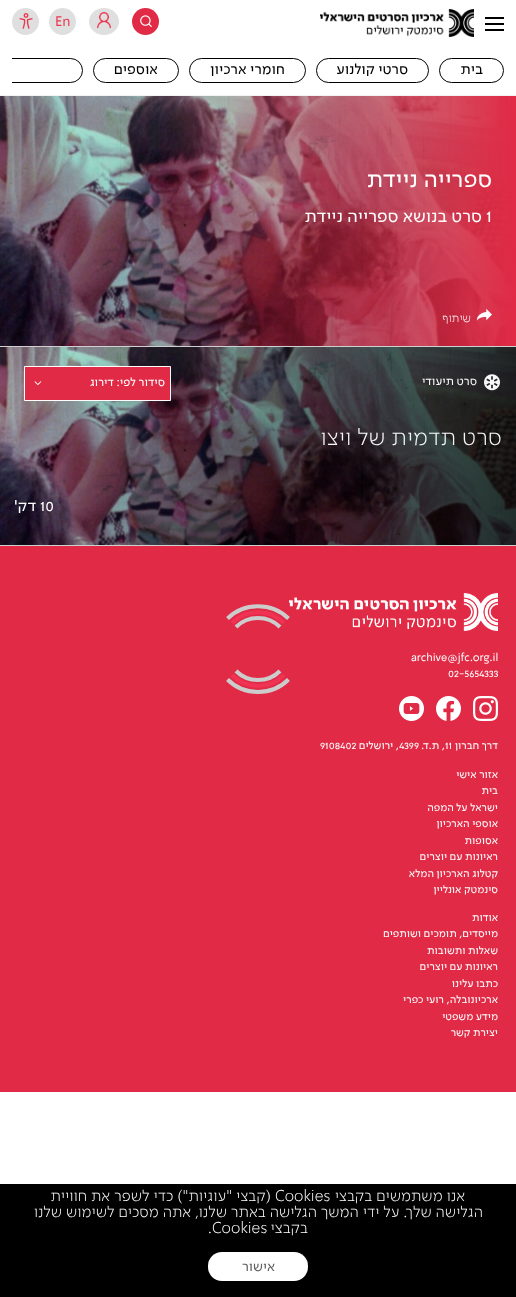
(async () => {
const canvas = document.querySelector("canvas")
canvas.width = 516
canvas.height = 1297
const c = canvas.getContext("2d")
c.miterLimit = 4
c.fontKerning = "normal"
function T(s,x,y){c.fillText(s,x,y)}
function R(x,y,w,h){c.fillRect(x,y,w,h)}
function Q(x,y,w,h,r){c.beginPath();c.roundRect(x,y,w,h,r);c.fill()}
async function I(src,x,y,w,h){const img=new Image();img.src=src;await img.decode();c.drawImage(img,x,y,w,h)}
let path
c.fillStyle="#fff"
R(0,0,516,1297)
c.fillStyle="#f3f3f3"
R(0,95,516,1)
c.fillStyle="#000"
R(485,17,19,2)
R(485,23,19,2)
R(485,29,19,2)
await I("1.png",320,9,154,28)
c.fillStyle="#e12a45"
c.beginPath()
c.arc(145.5,21.5,13.5,0,7)
c.fill()
await I("2.png",140,15,12,12)
c.fillStyle="#dfdfdf"
c.beginPath()
c.ellipse(104,21.5,15,13.5,0,0,7)
c.fill()
await I("3.png",97,12,14,16)
c.beginPath()
c.arc(62.5,21.5,13.5,0,7)
c.fill()
c.font="14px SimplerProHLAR"
c.fillStyle="#ed3550"
T("En",55,26)
c.fillStyle="#dfdfdf"
c.beginPath()
c.arc(25.5,21.5,13.5,0,7)
c.fill()
await I("4.png",19,13,14,16)
c.beginPath()
c.roundRect(439.5,58.5,64,24,12)
c.strokeStyle="#000"
c.stroke()
c.direction="rtl"
c.font="15px SimplerProHLAR"
c.fillStyle="#000"
T("בית",483,74)
c.beginPath()
c.roundRect(316.5,58.5,112,24,12)
c.stroke()
T("סרטי קולנוע",408,74)
c.beginPath()
c.roundRect(189.5,58.5,116,24,12)
c.stroke()
T("חומרי ארכיון",285,74)
c.beginPath()
c.roundRect(93.5,58.5,85,24,12)
c.stroke()
T("אוספים",158,74)
c.save()
c.beginPath()
c.rect(12,58,492,25)
c.clip()
c.beginPath()
c.roundRect(-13.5,58.5,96,24,12)
c.stroke()
c.restore()
c.fillStyle="#e12a45"
R(0,546,516,546)
await I("5.png",0,96,516,250)
c.font="24px SimplerProHLAR"
c.fillStyle="#fff"
T("ספרייה ניידת",492,187)
c.direction="ltr"
c.font="18px SimplerProHLAR"
T("1",486,222)
c.direction="rtl"
T("סרט בנושא ספרייה ניידת",482,222)
await I("6.png",476,309,16,12)
c.font="300 12px SimplerProHLAR"
T("שיתוף",471,322)
await I("8.png",0,347,516,198)
c.fillStyle="#e12a45"
c.beginPath()
c.rect(24.5,366.5,146,34)
c.fill()
c.strokeStyle="#fff"
c.stroke()
c.font="12px SimplerProHLAR"
c.fillStyle="#fff"
T("סידור לפי: דירוג",165,386)
await I("7.png",34,381,8,5)
c.fillStyle="#d0d0d0"
R(0,346,516,1)
R(0,545,516,1)
await I("9.png",484,374,16,17)
c.fillStyle="#f8f8f8"
T("סרט תיעודי",477,385)
c.font="300 24px SimplerProHLAR"
T("סרט תדמית של ויצו",502,445)
c.direction="ltr"
c.font="16px SimplerProHLAR"
c.fillStyle="#fff"
T("10",40,511)
c.direction="rtl"
T("דק'",36,511)
await I("10.png",289,593,209,38)
c.direction="ltr"
c.font="11px SimplerProHLAR"
T("archive@jfc.org.il",411,661)
T("02-5654333",448,677)
await I("11.png",473,696,25,25)
await I("12.png",436,696,25,25)
await I("13.png",399,696,25,25)
c.direction="rtl"
T("דרך חברון",498,749)
c.direction="ltr"
T("11",445,749)
c.direction="rtl"
T(", ת.ד.",445,749)
c.direction="ltr"
T("4399",399,749)
c.direction="rtl"
T(", ירושלים",399,749)
c.direction="ltr"
T("9108402",320,749)
c.direction="rtl"
T("אזור אישי",498,778)
T("בית",498,794)
T("ישראל על המפה",498,811)
T("אוספי הארכיון",498,827)
T("אסופות",498,844)
T("ראיונות עם יוצרים",498,860)
T("קטלוג הארכיון המלא",498,877)
T("סינמטק אונליין",498,893)
T("אודות",498,921)
T("מייסדים, תומכים ושותפים",498,937)
T("שאלות ותשובות",498,954)
T("ראיונות עם יוצרים",498,970)
T("כתבו עלינו",498,987)
T("ארכיונובלה, רועי כפרי",498,1003)
T("מידע משפטי",498,1020)
T("יצירת קשר",498,1036)
path = new Path2D("M227.5 618.5c16.5-16.5 44.5-16.5 61 0")
c.strokeStyle="#ccc"
c.lineWidth=4
c.stroke(path)
path = new Path2D("M288.5 679.5c-16.5 16.5-44.5 16.5-61 0")
c.stroke(path)
path = new Path2D("M232 623c14-14.5 38-14.5 52 0")
c.strokeStyle="#f03355"
c.stroke(path)
path = new Path2D("M284 675c-14 14.5-38 14.5-52 0")
c.stroke(path)
path = new Path2D("M236 627c12-12 32-12 44 0")
c.strokeStyle="#ccc"
c.stroke(path)
path = new Path2D("M280 671c-12 12-32 12-44 0")
c.stroke(path)
c.fillStyle="#000"
R(0,1184,516,113)
c.font="300 16px SimplerProHLAR"
c.fillStyle="#fff"
T("אנו משתמשים בקבצי",465,1201)
c.direction="ltr"
T("Cookies",275,1201)
c.direction="rtl"
T("(קבצי \"עוגיות\") כדי לשפר את חוויית",271,1201)
T("הגלישה שלך. על ידי המשך הגלישה באתר שלנו, אתה מסכים לשימוש שלנו",483,1217)
T("בקבצי",308,1233)
c.direction="ltr"
T(".Cookies",208,1233)
Q(208,1252,100,29,14)
c.direction="rtl"
c.font="14px SimplerProHLAR"
c.fillStyle="#626061"
T("אישור",275,1271)
})()
